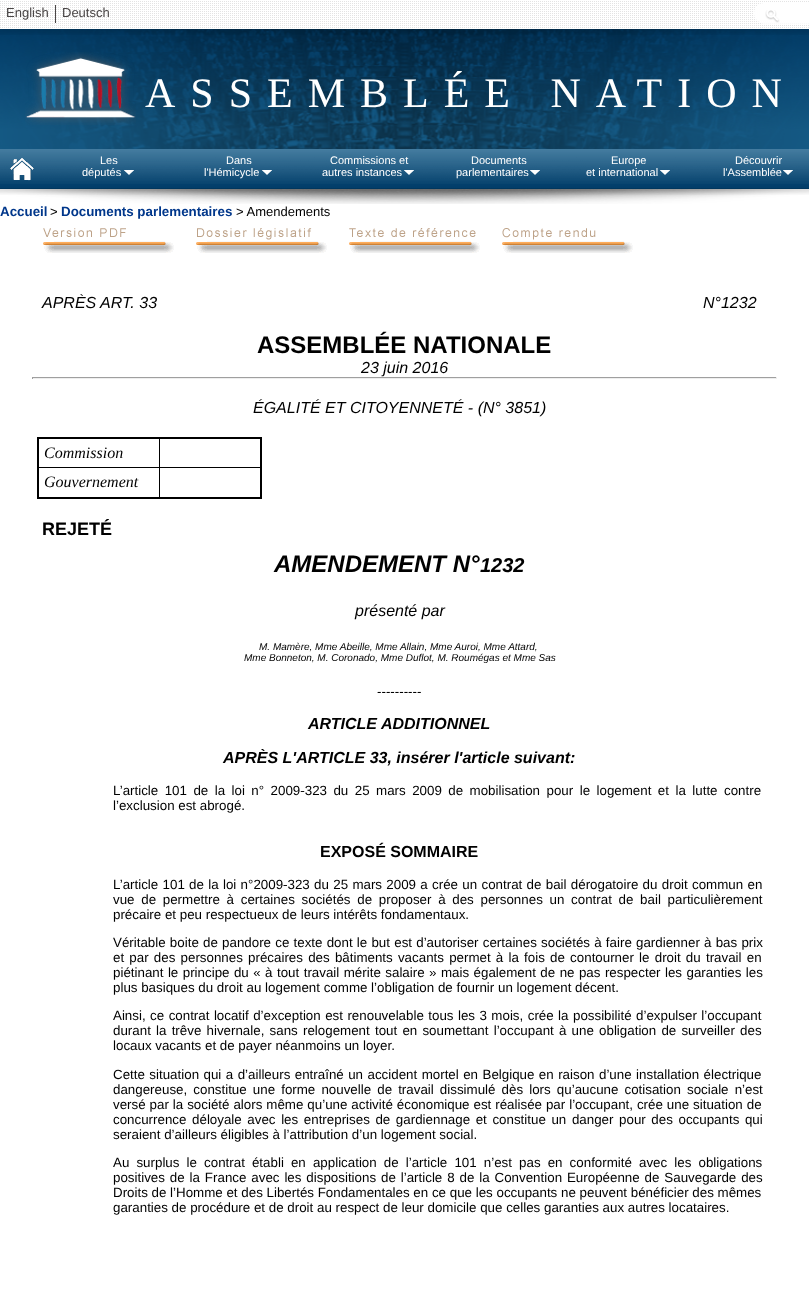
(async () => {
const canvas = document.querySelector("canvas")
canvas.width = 809
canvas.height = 1303
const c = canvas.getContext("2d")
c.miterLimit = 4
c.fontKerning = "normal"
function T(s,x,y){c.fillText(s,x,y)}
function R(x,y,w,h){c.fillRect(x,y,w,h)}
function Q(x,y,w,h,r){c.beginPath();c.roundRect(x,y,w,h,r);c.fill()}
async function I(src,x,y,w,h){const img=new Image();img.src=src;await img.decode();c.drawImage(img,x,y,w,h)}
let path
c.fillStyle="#fff"
R(0,0,809,1303)
await I("1.png",0,1,809,28)
await I("2.png",0,29,809,120)
c.font="13px Liberation Sans"
c.fillStyle="#4a4646"
T("English",6,17)
R(55,5,1,18)
T("Deutsch",62,17)
c.fillStyle="#ffffff80"
c.filter="blur(1px)"
c.beginPath()
c.roundRect(754,3,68,20,10)
c.fill()
c.filter="none"
c.fillStyle="#ffffffb3"
path = new Path2D("M754 13c-1 17 27 11 33 11h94c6 0 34 6 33-11c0 6-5 10-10 10h-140c-5 0-10-4-10-10z")
c.fill(path)
c.fillStyle="#fff"
Q(754,3,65,20,10)
await I("3.png",765,10,15,13)
await I("4.png",25,52,111,73)
c.letterSpacing="15px"
c.font="42px Liberation Serif"
T("ASSEMBLÉE NATION",145,107)
await I("14.png",0,149,809,40)
await I("5.png",0,149,809,35)
await I("6.png",10,158,24,23)
c.letterSpacing="0px"
c.font="11px Liberation Sans"
T("Les",100,164)
T("députés",82,176)
await I("7.png",124,170,10,5)
T("Dans",226,164)
T("l'Hémicycle",204,176)
await I("8.png",262,170,10,5)
T("Commissions et",330,164)
T("autres instances",322,176)
await I("9.png",404,170,10,5)
T("Documents",471,164)
T("parlementaires",456,176)
await I("10.png",530,170,10,5)
T("Europe",611,164)
T("et international",586,176)
await I("11.png",660,170,10,5)
T("Découvrir",735,164)
T("l'Assemblée",723,176)
await I("12.png",783,170,10,5)
await I("13.png",0,29,809,6)
await I("16.png",0,189,809,15)
await I("15.png",0,188,809,7)
c.font="bold 13.35px Liberation Sans"
c.fillStyle="#00378b"
T("Accueil",0,216)
c.font="13px Liberation Sans"
c.fillStyle="#000"
T(">",50,216)
c.font="bold 13.35px Liberation Sans"
c.fillStyle="#00378b"
T("Documents parlementaires",61,216)
c.font="13px Liberation Sans"
c.fillStyle="#000"
T("> Amendements",236,216)
await I("17.png",43,228,131,25)
await I("18.png",196,228,131,25)
await I("19.png",349,228,131,25)
await I("20.png",502,228,131,25)
c.font="italic 16px Liberation Sans"
T("APRÈS ART. 33",42,308)
T("N°1232",703,308)
c.font="bold 24px Liberation Sans"
T("ASSEMBLÉE NATIONALE",257,353)
c.font="italic 16px Liberation Sans"
T("23 juin 2016",361,373)
c.fillStyle="#9f9f9f"
R(32,377,745,1)
c.fillStyle="#eee"
R(776,377,1,2)
R(32,378,745,1)
c.fillStyle="#9f9f9f"
R(32,377,1,2)
c.fillStyle="#000"
T("ÉGALITÉ ET CITOYENNETÉ - (N° 3851)",253,413)
R(159,467,103,1)
R(159,467,1,31)
R(38,467,122,1)
R(159,437,1,31)
R(37,437,225,2)
R(260,437,2,62)
R(37,497,225,2)
R(37,437,2,62)
c.font="italic 16px Liberation Serif"
T("Commission",44,458)
T("Gouvernement",44,487)
c.font="bold 18px Liberation Sans"
T("REJETÉ",42,535)
c.font="italic bold 24px Liberation Sans"
T("AMENDEMENT N°",274,572)
c.font="italic bold 20px Liberation Sans"
T("1232",480,572)
c.font="italic 16px Liberation Sans"
T("présenté par",355,616)
c.font="italic 10px Liberation Sans"
T("M. Mamère, Mme Abeille, Mme Allain, Mme Auroi, Mme Attard,",259,650)
T("Mme Bonneton, M. Coronado, Mme Duflot, M. Roumégas et Mme Sas",244,661)
c.font="13.35px Liberation Sans"
T("----------",377,696)
c.font="italic bold 16px Liberation Sans"
T("ARTICLE ADDITIONNEL",308,729)
T("APRÈS L'ARTICLE 33, insérer l'article suivant:",223,763)
c.wordSpacing="2.75px"
c.font="13.35px Liberation Sans"
T("L’article 101 de la loi n° 2009‑323 du 25 mars 2009 de mobilisation pour le logement et la lutte contre",113,795)
c.wordSpacing="0px"
T("l’exclusion est abrogé.",113,810)
c.font="bold 16px Liberation Sans"
T("EXPOSÉ SOMMAIRE",320,857)
c.wordSpacing="0.6px"
c.font="13.35px Liberation Sans"
T("L’article 101 de la loi n°2009‑323 du 25 mars 2009 a crée un contrat de bail dérogatoire du droit commun en",113,889)
c.wordSpacing="3px"
T("vue de permettre à certaines sociétés de proposer à des personnes un contrat de bail particulièrement",113,904)
c.wordSpacing="0px"
T("précaire et peu respectueux de leurs intérêts fondamentaux.",113,919)
c.wordSpacing="0.5px"
T("Véritable boite de pandore ce texte dont le but est d’autoriser certaines sociétés à faire gardienner à bas prix",113,947)
c.wordSpacing="1.5px"
T("et par des personnes précaires des bâtiments vacants permet à la fois de contourner le droit du travail en",113,962)
c.wordSpacing="0.75px"
T("piétinant le principe du « à tout travail mérite salaire » mais également de ne pas respecter les garanties les",113,977)
c.wordSpacing="0px"
T("plus basiques du droit au logement comme l’obligation de fournir un logement décent.",113,992)
c.wordSpacing="0.75px"
T("Ainsi, ce contrat locatif d’exception est renouvelable tous les 3 mois, crée la possibilité d’expulser l’occupant",113,1020)
c.wordSpacing="1.5px"
T("durant la trêve hivernale, sans relogement tout en soumettant l’occupant à une obligation de surveiller des",113,1035)
c.wordSpacing="0px"
T("locaux vacants et de payer néanmoins un loyer.",113,1050)
c.wordSpacing="0.75px"
T("Cette situation qui a d’ailleurs entraîné un accident mortel en Belgique en raison d’une installation électrique",113,1079)
c.wordSpacing="2.4px"
T("dangereuse, constitue une forme nouvelle de travail dissimulé dès lors qu’aucune cotisation sociale n’est",113,1094)
c.wordSpacing="0.25px"
T("versé par la société alors même qu’une activité économique est réalisée par l’occupant, crée une situation de",113,1109)
c.wordSpacing="1.9px"
T("concurrence déloyale avec les entreprises de gardiennage et constitue un danger pour des occupants qui",113,1124)
c.wordSpacing="0px"
T("seraient d’ailleurs éligibles à l’attribution d’un logement social.",113,1139)
c.wordSpacing="3.4px"
T("Au surplus le contrat établi en application de l’article 101 n’est pas en conformité avec les obligations",113,1167)
c.wordSpacing="1.2px"
T("positives de la France avec les dispositions de l’article 8 de la Convention Européenne de Sauvegarde des",113,1182)
c.wordSpacing="0px"
T("Droits de l’Homme et des Libertés Fondamentales en ce que les occupants ne peuvent bénéficier des mêmes",113,1197)
T("garanties de procédure et de droit au respect de leur domicile que celles garanties aux autres locataires.",113,1212)
})()
